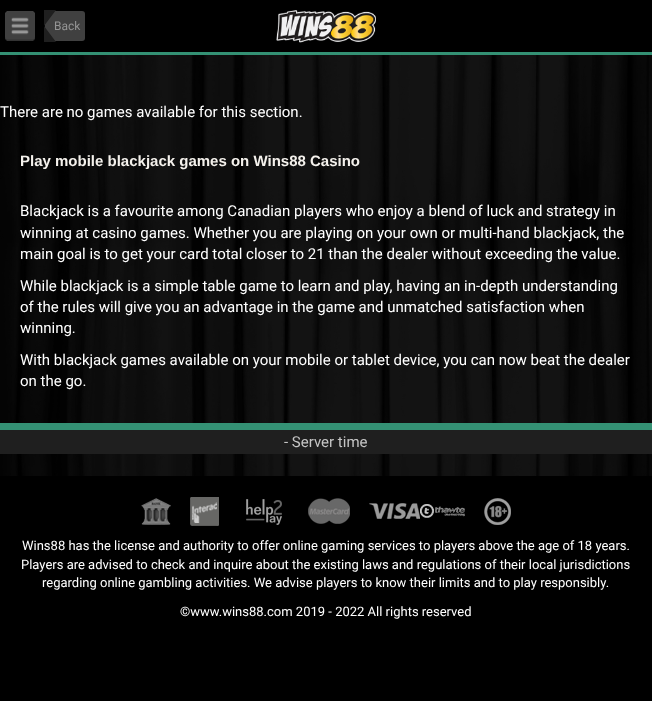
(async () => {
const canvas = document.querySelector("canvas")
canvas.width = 652
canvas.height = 701
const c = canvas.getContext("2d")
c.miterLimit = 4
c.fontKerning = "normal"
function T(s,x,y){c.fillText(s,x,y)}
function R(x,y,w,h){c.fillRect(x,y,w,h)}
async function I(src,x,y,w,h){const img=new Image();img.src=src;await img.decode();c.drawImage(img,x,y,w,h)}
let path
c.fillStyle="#000"
R(0,0,652,701)
await I("1.png",0,55,652,421)
await I("2.png",5,11,30,30)
c.fillStyle="#404040"
c.beginPath()
c.roundRect(45,11,40,30,[0,3,3,0])
c.fill()
c.font="12px Roboto"
c.fillStyle="#949494"
T("Back",54,30)
c.fillStyle="#1f1f1f"
path = new Path2D("M44 10h12l-12 16zm12 32h-12v-16z")
c.fill(path)
await I("3.png",276,10,100,33)
c.fillStyle="#349174"
R(0,52,652,3)
c.font="15px Roboto"
c.fillStyle="#fff"
T("There are no games available for this section.",0,117)
c.font="bold 15px Liberation Sans"
c.fillStyle="#f4f1ec"
T("Play mobile blackjack games on Wins88 Casino",20,166)
c.font="15px Roboto"
c.fillStyle="#fff"
T("Blackjack is a favourite among Canadian players who enjoy a blend of luck and strategy in",20,216)
T("winning at casino games. Whether you are playing on your own or multi-hand blackjack, the",20,238)
T("main goal is to get your card total closer to 21 than the dealer without exceeding the value.",20,259)
T("While blackjack is a simple table game to learn and play, having an in-depth understanding",20,291)
T("of the rules will give you an advantage in the game and unmatched satisfaction when",20,312)
T("winning.",20,333)
T("With blackjack games available on your mobile or tablet device, you can now beat the dealer",20,365)
T("on the go.",20,386)
c.fillStyle="#349174"
R(0,423,652,7)
c.fillStyle="#1f1f1f"
R(0,430,652,24)
c.fillStyle="#c5c5c5"
T("- Server time",284,447)
await I("4.png",141,498,30,27)
await I("5.png",190,497,29,29)
await I("6.png",246,499,36,26)
await I("7.png",308,498,42,26)
await I("8.png",369,503,51,16)
await I("9.png",420,504,45,14)
await I("10.png",484,498,27,27)
c.font="13px Roboto"
c.fillStyle="#fff"
T("Wins88 has the license and authority to offer online gaming services to players above the age of 18 years.",22,550)
T("Players are advised to check and inquire about the existing laws and regulations of their local jurisdictions",21,569)
T("regarding online gambling activities. We advise players to know their limits and to play responsibly.",42,587)
T("©www.wins88.com 2019 - 2022 All rights reserved",180,616)
})()
